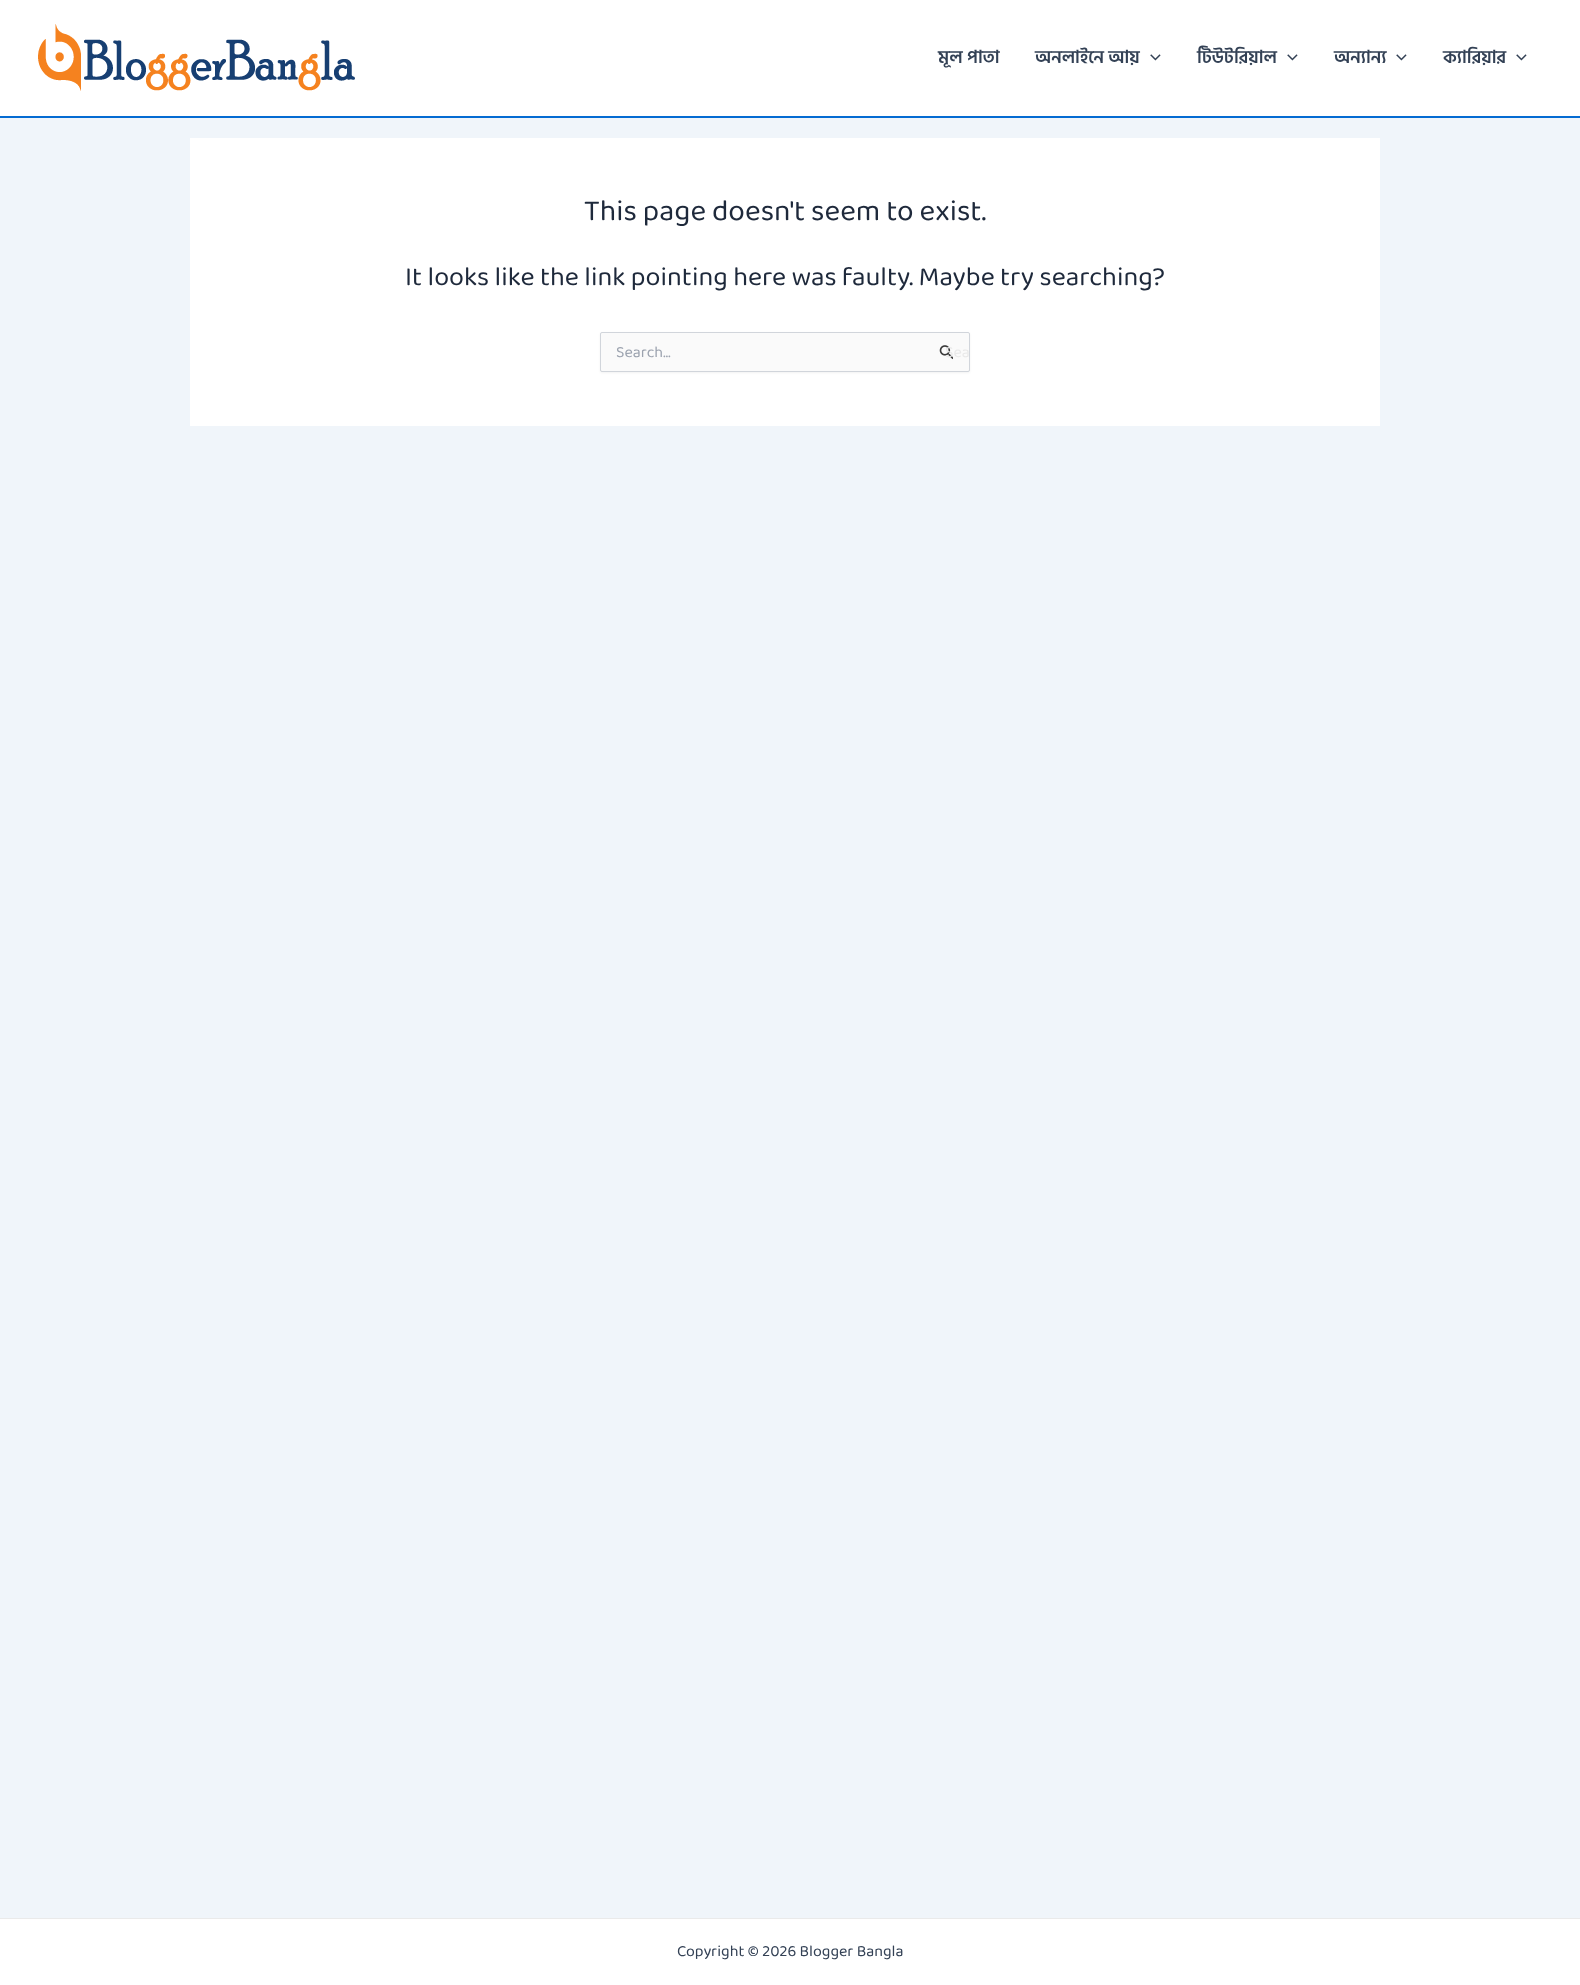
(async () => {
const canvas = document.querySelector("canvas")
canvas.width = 1580
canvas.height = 1985
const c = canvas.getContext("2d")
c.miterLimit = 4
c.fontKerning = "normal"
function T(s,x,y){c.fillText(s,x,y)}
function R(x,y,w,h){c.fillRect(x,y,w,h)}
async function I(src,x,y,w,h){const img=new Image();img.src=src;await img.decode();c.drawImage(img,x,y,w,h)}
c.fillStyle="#f0f5fa"
R(0,0,1580,1985)
c.fillStyle="#fff"
R(0,0,1580,116)
c.fillStyle="#046bd2"
R(0,116,1580,2)
await I("1.png",38,24,317,67)
c.font="600 18px Hind Siliguri"
c.fillStyle="#334155"
T("মূল পাতা",938,63)
T("অনলাইনে আয়",1035,63)
await I("2.png",1150,54,11,7)
T("টিউটরিয়াল",1197,63)
await I("2.png",1287,54,11,7)
T("অন্যান্য",1334,63)
await I("2.png",1396,54,11,7)
T("ক্যারিয়ার",1443,63)
await I("2.png",1516,54,11,7)
c.fillStyle="#fff"
R(190,138,1190,288)
c.font="30px 'Baloo Da 2'"
c.fillStyle="#1e293b"
T("This page doesn't seem to exist.",584,220)
c.font="27px 'Baloo Da 2'"
T("It looks like the link pointing here was faulty. Maybe try searching?",405,285)
c.fillStyle="#0000000d"
c.filter="blur(1px)"
c.beginPath()
c.roundRect(600,333,370,40,2)
c.fill()
c.filter="none"
c.fillStyle="#fafafa"
c.beginPath()
c.roundRect(600.5,332.5,369,39,1.5)
c.fill()
c.strokeStyle="#d1d5db"
c.stroke()
c.font="16px 'Baloo Da 2'"
c.fillStyle="#9ca3af"
T("Search...",616,357)
await I("3.png",939,345,14,15)
c.fillStyle="#e9e9e9"
T("Sea",945,357)
c.fillStyle="#fff"
R(0,1919,1580,66)
c.fillStyle="#eaeaea"
R(0,1918,1580,1)
c.fillStyle="#334155"
T("Copyright © 2026 Blogger Bangla",677,1956)
})()
